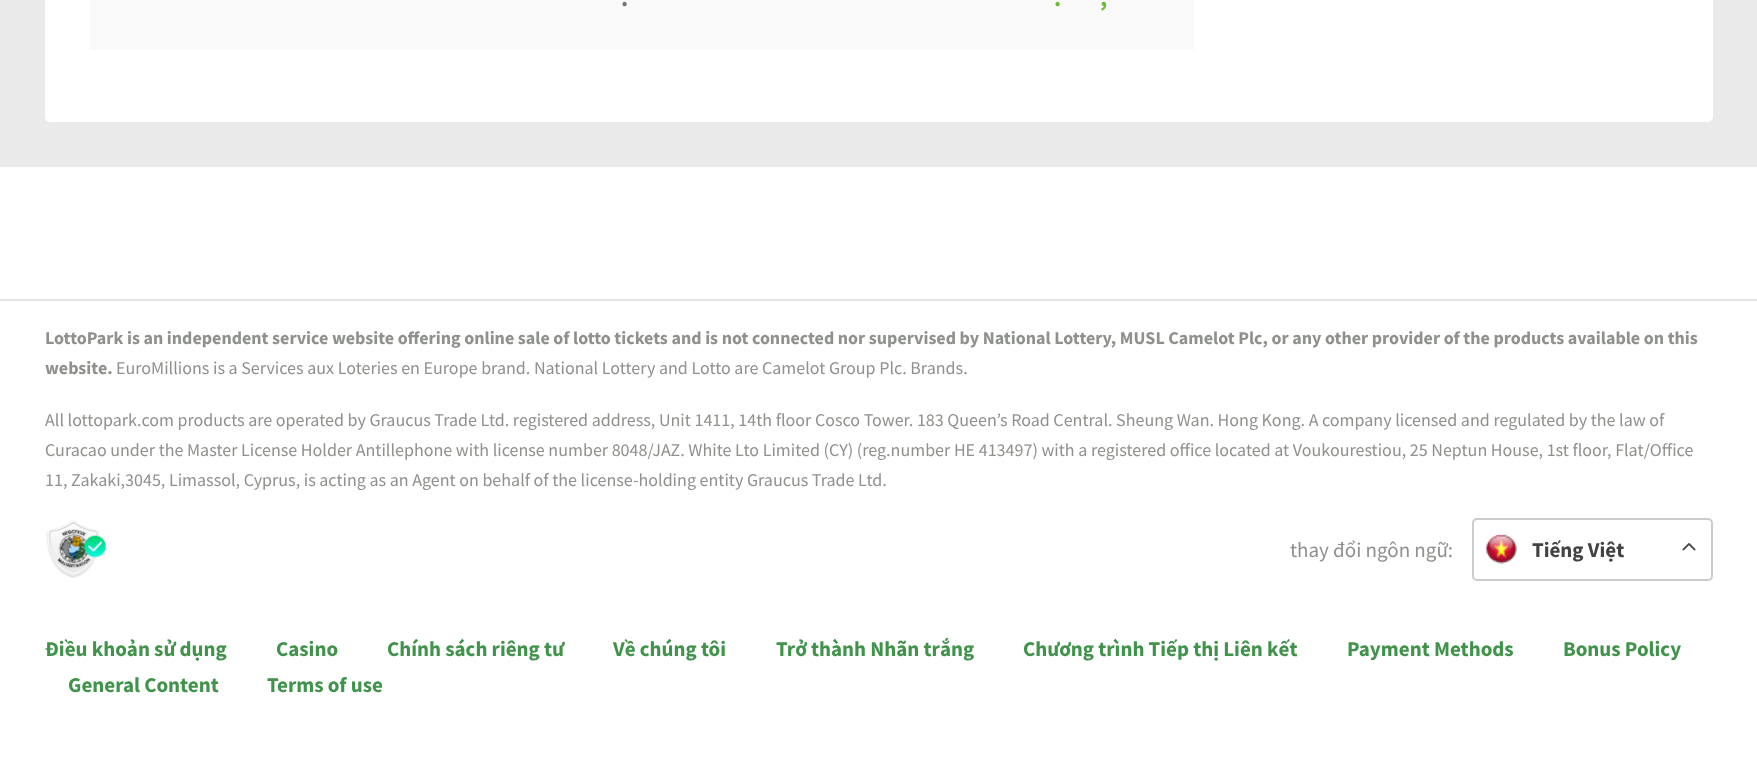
(async () => {
const canvas = document.querySelector("canvas")
canvas.width = 1757
canvas.height = 762
const c = canvas.getContext("2d")
c.miterLimit = 4
c.fontKerning = "normal"
function T(s,x,y){c.fillText(s,x,y)}
function R(x,y,w,h){c.fillRect(x,y,w,h)}
function Q(x,y,w,h,r){c.beginPath();c.roundRect(x,y,w,h,r);c.fill()}
async function I(src,x,y,w,h){const img=new Image();img.src=src;await img.decode();c.drawImage(img,x,y,w,h)}
c.fillStyle="#fff"
R(0,0,1757,762)
c.fillStyle="#eaeaea"
R(0,0,1757,167)
c.fillStyle="#fff"
Q(45,-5,1668,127,5)
c.fillStyle="#f9f9f9"
R(90,0,1104,50)
c.font="bold 24px Source Sans Pro"
c.fillStyle="#747474"
T(".",621,6)
c.fillStyle="#67bd2e"
T(".",1054,6)
T(",",1100,6)
c.fillStyle="#e5e5e5"
R(0,299,1757,2)
c.font="bold 18px Source Sans Pro"
c.fillStyle="#8e918c"
T("LottoPark is an independent service website offering online sale of lotto tickets and is not connected nor supervised by National Lottery, MUSL Camelot Plc, or any other provider of the products available on this",45,344)
T("website.",45,374)
c.font="18px Source Sans Pro"
T("EuroMillions is a Services aux Loteries en Europe brand. National Lottery and Lotto are Camelot Group Plc. Brands.",116,374)
T("All lottopark.com products are operated by Graucus Trade Ltd. registered address, Unit 1411, 14th floor Cosco Tower. 183 Queen’s Road Central. Sheung Wan. Hong Kong. A company licensed and regulated by the law of",45,426)
T("Curacao under the Master License Holder Antillephone with license number 8048/JAZ. White Lto Limited (CY) (reg.number HE 413497) with a registered office located at Voukourestiou, 25 Neptun House, 1st floor, Flat/Office",45,456)
T("11, Zakaki,3045, Limassol, Cyprus, is acting as an Agent on behalf of the license-holding entity Graucus Trade Ltd.",45,486)
await I("1.png",46,520,61,58)
c.font="21px Source Sans Pro"
T("thay đổi ngôn ngữ:",1290,557)
c.beginPath()
c.roundRect(1473,519,239,61,4)
c.strokeStyle="#ccc"
c.lineWidth=2
c.stroke()
await I("2.png",1486,534,31,30)
c.font="bold 21px Source Sans Pro"
c.fillStyle="#424242"
T("Tiếng Việt",1532,557)
await I("3.png",1682,543,14,8)
c.fillStyle="#41934c"
T("Điều khoản sử dụng",45,656)
T("Casino",276,656)
T("Chính sách riêng tư",387,656)
T("Về chúng tôi",613,656)
T("Trở thành Nhãn trắng",776,656)
T("Chương trình Tiếp thị Liên kết",1023,656)
T("Payment Methods",1347,656)
T("Bonus Policy",1563,656)
T("General Content",68,692)
T("Terms of use",267,692)
})()
